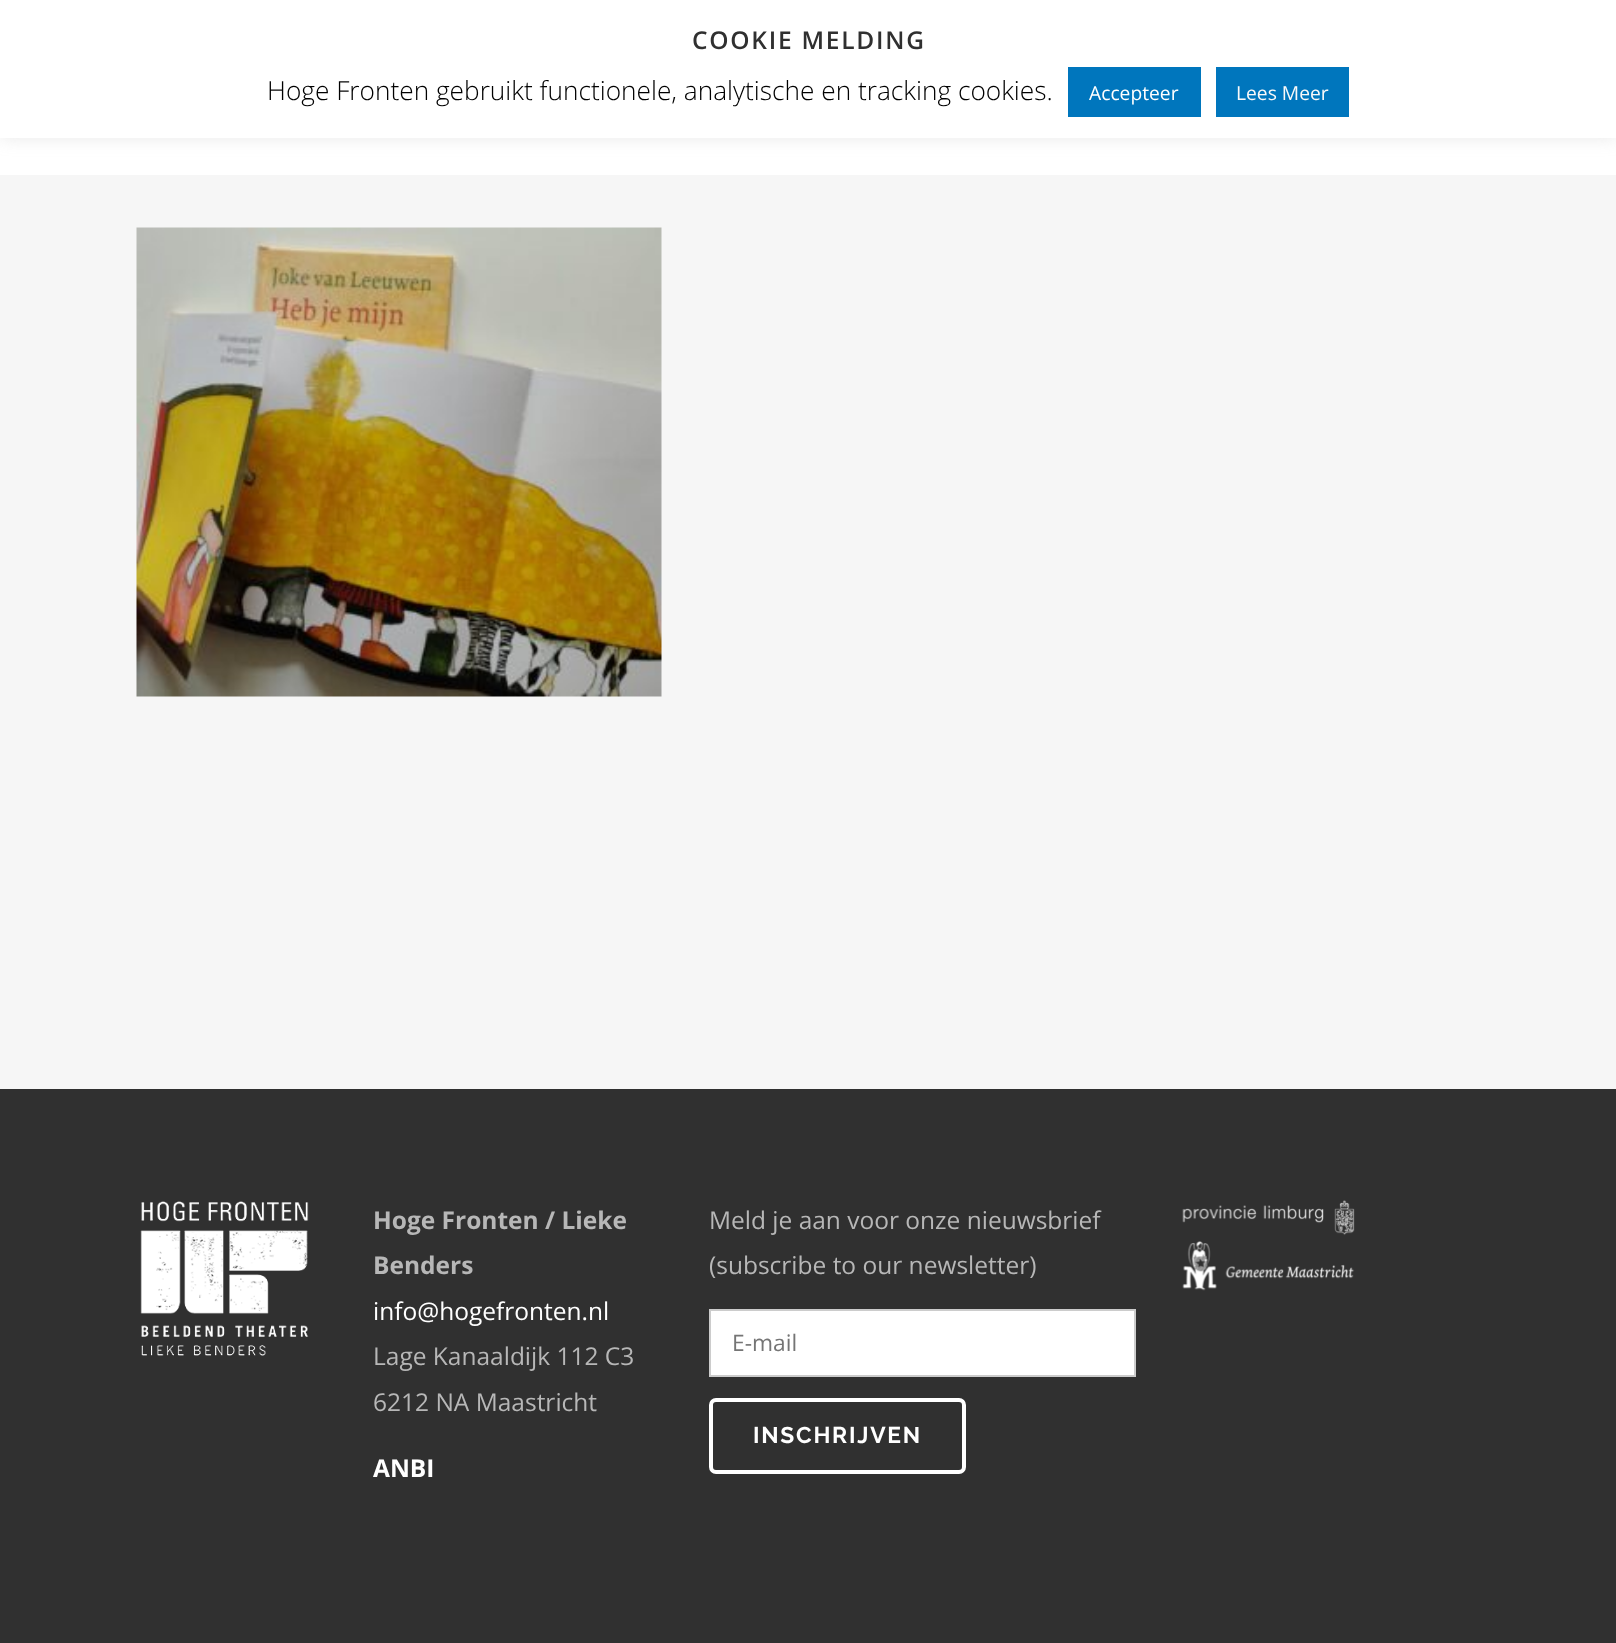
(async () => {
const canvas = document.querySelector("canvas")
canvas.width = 1616
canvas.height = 1643
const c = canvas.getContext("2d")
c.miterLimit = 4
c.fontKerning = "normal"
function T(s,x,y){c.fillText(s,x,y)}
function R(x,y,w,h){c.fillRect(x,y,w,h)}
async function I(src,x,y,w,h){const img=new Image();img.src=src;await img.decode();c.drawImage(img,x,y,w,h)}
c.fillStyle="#f6f6f6"
R(0,0,1616,1643)
c.fillStyle="#fff"
R(0,138,1616,37)
c.fillStyle="#acabab4d"
c.filter="blur(9px)"
c.beginPath()
c.rect(0,-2,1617,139)
c.fill()
c.filter="none"
c.fillStyle="#fff"
R(0,0,1616,138)
c.letterSpacing="1.75px"
c.font="600 24.5px Open Sans"
c.fillStyle="#303030"
T("COOKIE MELDING",692,49)
c.letterSpacing="0px"
c.font="300 26.25px Open Sans"
c.fillStyle="#000"
T("Hoge Fronten gebruikt functionele, analytische en tracking cookies.",267,100)
c.fillStyle="#0076bd"
R(1068,67,133,50)
c.font="19.25px Open Sans"
c.fillStyle="#fff"
T("Accepteer",1089,100)
c.fillStyle="#0076bd"
R(1216,67,133,50)
c.fillStyle="#f9f9f9"
T("Lees Meer",1236,100)
await I("1.png",136,227,526,470)
c.fillStyle="#303030"
R(0,1089,1616,554)
await I("2.png",140,1201,169,155)
c.font="bold 24.5px Open Sans"
c.fillStyle="#b7b7b7"
T("Hoge Fronten / Lieke",373,1229)
T("Benders",373,1274)
c.font="24.5px Open Sans"
c.fillStyle="#fff"
T("info@hogefronten.nl",373,1320)
c.fillStyle="#b7b7b7"
T("Lage Kanaaldijk 112 C3",373,1365)
T("6212 NA Maastricht",373,1411)
c.font="bold 24.5px Open Sans"
c.fillStyle="#fff"
T("ANBI",373,1477)
c.font="24.5px Open Sans"
c.fillStyle="#b7b7b7"
T("Meld je aan voor onze nieuwsbrief",709,1229)
T("(subscribe to our newsletter)",709,1274)
c.fillStyle="#fff"
c.beginPath()
c.rect(710,1310,425,66)
c.fill()
c.strokeStyle="#ccc"
c.lineWidth=2
c.stroke()
c.font="22.75px Open Sans"
c.fillStyle="#757575"
T("E-mail",732,1351)
c.beginPath()
c.roundRect(711,1400,253,72,5)
c.strokeStyle="#fff"
c.lineWidth=4
c.stroke()
c.letterSpacing="1.75px"
c.font="bold 22.75px Raleway"
c.fillStyle="#fff"
T("INSCHRIJVEN",753,1443)
await I("3.png",1182,1200,173,91)
})()
